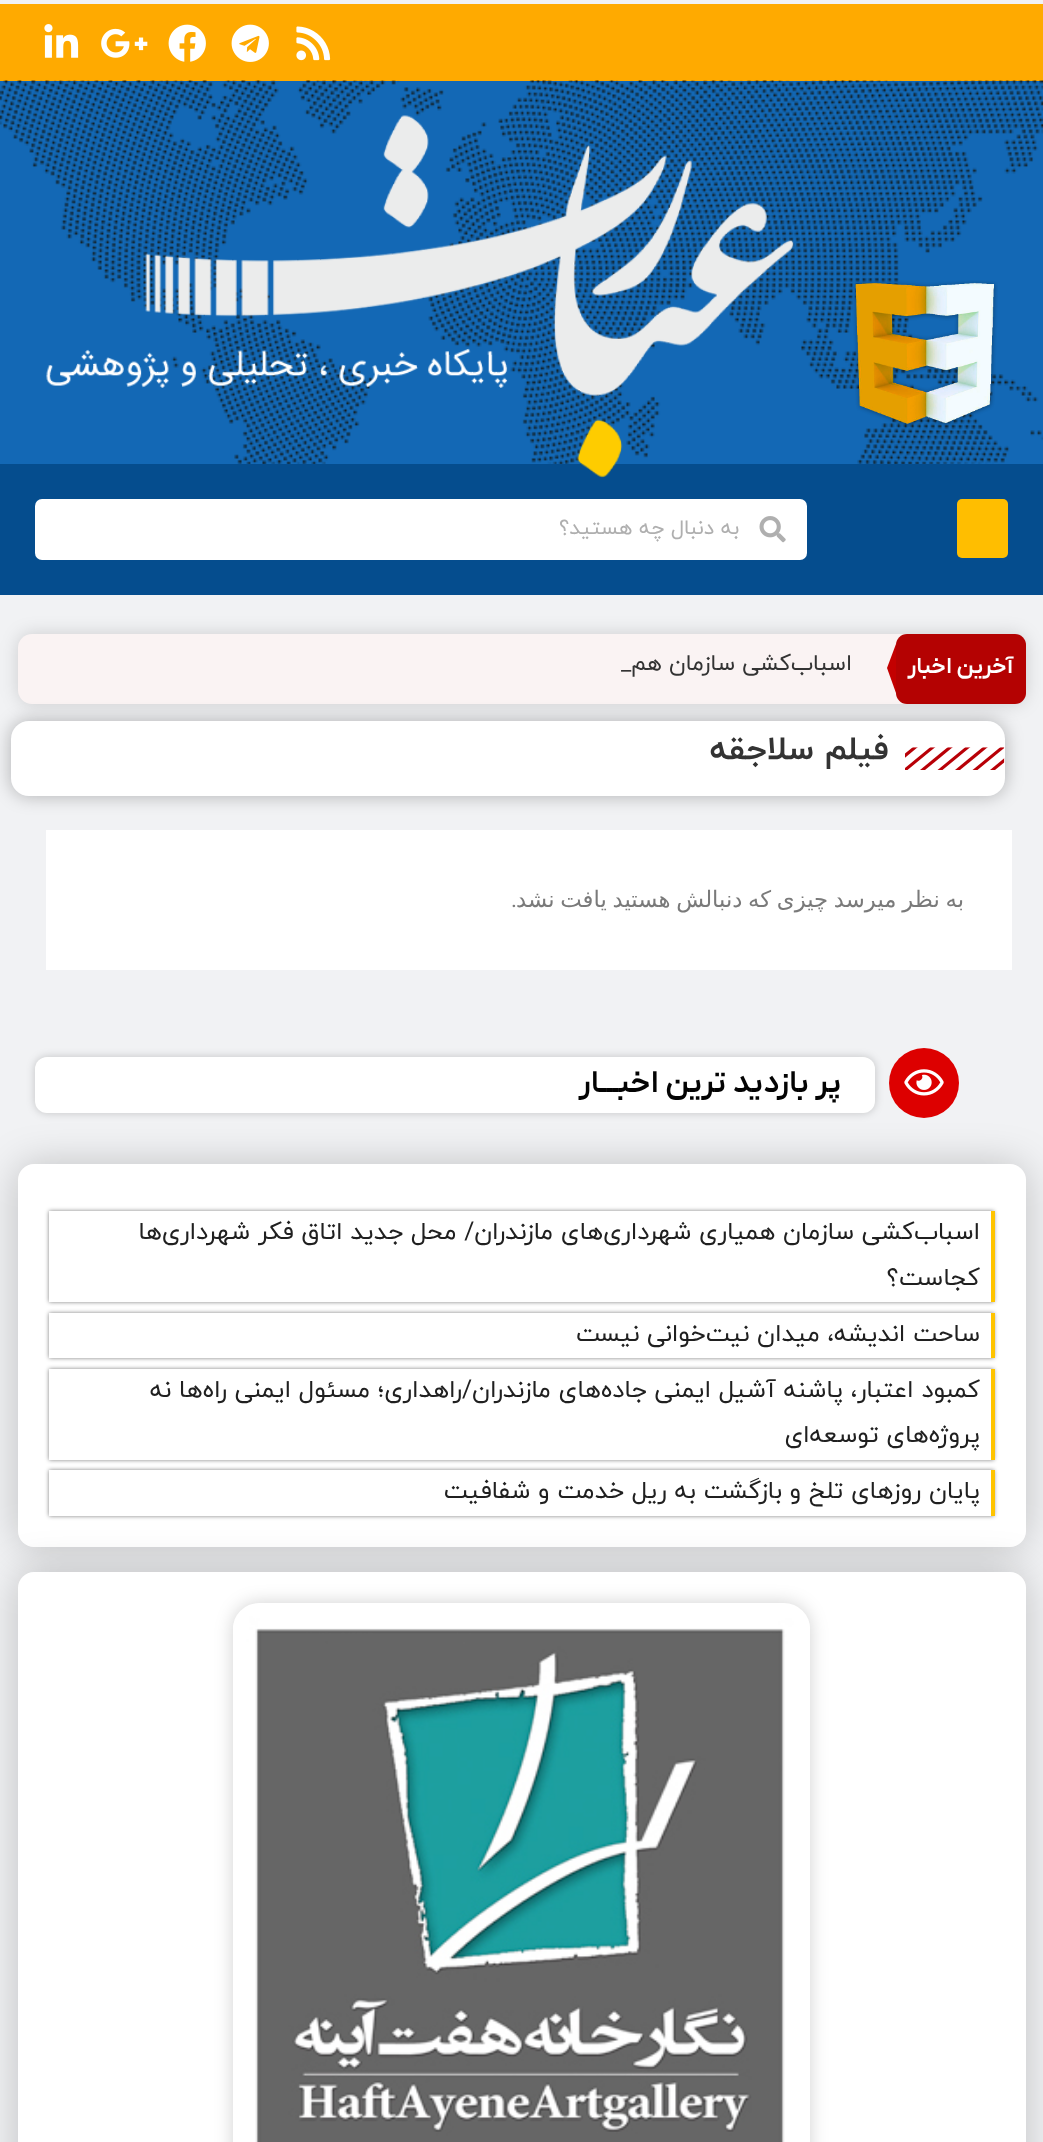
(async () => {
const canvas = document.querySelector("canvas")
canvas.width = 1043
canvas.height = 2142
const c = canvas.getContext("2d")
c.miterLimit = 4
c.fontKerning = "normal"
function T(s,x,y){c.fillText(s,x,y)}
function R(x,y,w,h){c.fillRect(x,y,w,h)}
function Q(x,y,w,h,r){c.beginPath();c.roundRect(x,y,w,h,r);c.fill()}
async function I(src,x,y,w,h){const img=new Image();img.src=src;await img.decode();c.drawImage(img,x,y,w,h)}
let path
c.fillStyle="#f1f2f4"
R(0,0,1043,2142)
c.fillStyle="#fa0"
R(0,4,1043,77)
await I("1.png",296,26,35,35)
await I("2.png",231,24,38,38)
await I("3.png",168,24,38,38)
await I("4.png",101,28,47,30)
await I("5.png",44,24,35,34)
c.fillStyle="#1368b5"
R(0,81,1043,383)
await I("6.png",0,80,1043,384)
await I("7.png",852,280,146,147)
c.fillStyle="#054d8e"
R(0,464,1043,131)
await I("8.png",46,115,748,363)
c.fillStyle="#ffbe00"
Q(957,499,51,59,5)
c.fillStyle="#fff"
Q(35,499,772,61,7)
await I("9.png",759,516,27,27)
c.direction="rtl"
c.font="21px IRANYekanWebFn"
c.fillStyle="#afafaf"
T("به دنبال چه هستید؟",739,534)
c.fillStyle="#00000026"
c.filter="blur(9px)"
c.beginPath()
c.roundRect(18,634,1008,70,14)
c.fill()
c.filter="none"
c.fillStyle="#faf3f3"
Q(18,634,1008,70,14)
c.fillStyle="#b40202"
Q(896,634,130,70,11)
c.font="600 22.75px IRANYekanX"
c.fillStyle="#fff"
T("آخرین اخبار",1013,673)
c.fillStyle="#c30000"
path = new Path2D("M896 644v49l-9-25z")
c.fill(path)
c.font="22.75px IRANYekanWebFn"
c.fillStyle="#333"
T("اسباب‌کشی سازمان هم",852,670)
c.direction="ltr"
T("_",621,670)
c.fillStyle="#00000045"
c.filter="blur(9px)"
c.beginPath()
c.roundRect(11,721,994,75,18)
c.fill()
c.filter="none"
c.fillStyle="#fff"
Q(11,721,994,75,18)
await I("10.png",905,747,100,23)
c.direction="rtl"
c.font="bold 33.25px IRANYekanWebFn"
c.fillStyle="#333"
T("فیلم سلاجقه",889,759)
c.fillStyle="#fff"
R(46,830,966,140)
c.wordSpacing="-1.5px"
c.font="22.75px DejaVu Sans"
c.fillStyle="#7a7a7a"
T("به نظر میرسد چیزی که دنبالش هستید یافت نشد",964,907)
c.wordSpacing="0px"
c.font="22.75px Roboto"
T(".",517,907)
c.fillStyle="#00000030"
c.filter="blur(4.5px)"
c.beginPath()
c.roundRect(35,1057,840,56,12)
c.fill()
c.filter="none"
c.fillStyle="#fff"
Q(35,1057,840,56,12)
c.fillStyle="#00000038"
c.filter="blur(20px)"
c.beginPath()
c.roundRect(19,1166,1005,379,14)
c.fill()
c.filter="none"
c.fillStyle="#d00"
c.beginPath()
c.arc(924,1083,35,0,7)
c.fill()
await I("11.png",904,1069,40,27)
c.font="600 31.5px IRANYekanX"
c.fillStyle="#030303"
T("پر بازدید ترین اخبـــار",841,1092)
c.fillStyle="#fff"
Q(18,1164,1008,383,16)
c.save()
path = new Path2D("M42 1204h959v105h-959zm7 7h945v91h-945z")
c.clip(path,"evenodd")
c.fillStyle="#00000080"
c.filter="blur(2px)"
c.beginPath()
c.rect(49,1211,945,91)
c.fill()
c.filter="none"
c.restore()
c.fillStyle="#ffc400"
R(991,1211,4,91)
c.font="24.5px IRANYekanWebFn"
c.fillStyle="#202020"
T("اسباب‌کشی سازمان همیاری شهرداری‌های مازندران/ محل جدید اتاق فکر شهرداری‌ها",980,1239)
T("کجاست؟",980,1285)
c.save()
path = new Path2D("M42 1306h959v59h-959zm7 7h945v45h-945z")
c.clip(path,"evenodd")
c.fillStyle="#00000080"
c.filter="blur(2px)"
c.beginPath()
c.rect(49,1313,945,45)
c.fill()
c.filter="none"
c.restore()
c.fillStyle="#ffc400"
R(991,1313,4,45)
c.fillStyle="#202020"
T("ساحت اندیشه، میدان نیت‌خوانی نیست",980,1341)
c.fillStyle="#00000080"
c.filter="blur(2px)"
c.beginPath()
c.rect(49,1369,945,91)
c.fill()
c.filter="none"
c.fillStyle="#fff"
R(49,1369,942,91)
c.fillStyle="#ffc400"
R(991,1369,4,91)
c.fillStyle="#202020"
T("کمبود اعتبار، پاشنه آشیل ایمنی جاده‌های مازندران/راهداری؛ مسئول ایمنی راه‌ها نه",980,1397)
T("پروژه‌های توسعه‌ای",980,1442)
c.fillStyle="#00000080"
c.filter="blur(2px)"
c.beginPath()
c.rect(49,1470,945,46)
c.fill()
c.filter="none"
c.fillStyle="#fff"
R(49,1470,942,46)
c.fillStyle="#ffc400"
R(991,1470,4,46)
c.fillStyle="#202020"
T("پایان روزهای تلخ و بازگشت به ریل خدمت و شفافیت",980,1498)
c.fillStyle="#00000038"
c.filter="blur(20px)"
c.beginPath()
c.roundRect(19,1573,1005,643,14)
c.fill()
c.filter="none"
c.fillStyle="#fff"
Q(18,1572,1008,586,16)
c.fillStyle="#0000002e"
c.filter="blur(9px)"
c.beginPath()
c.roundRect(233,1603,577,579,26)
c.fill()
c.filter="none"
await I("12.png",233,1603,577,539)
})()
